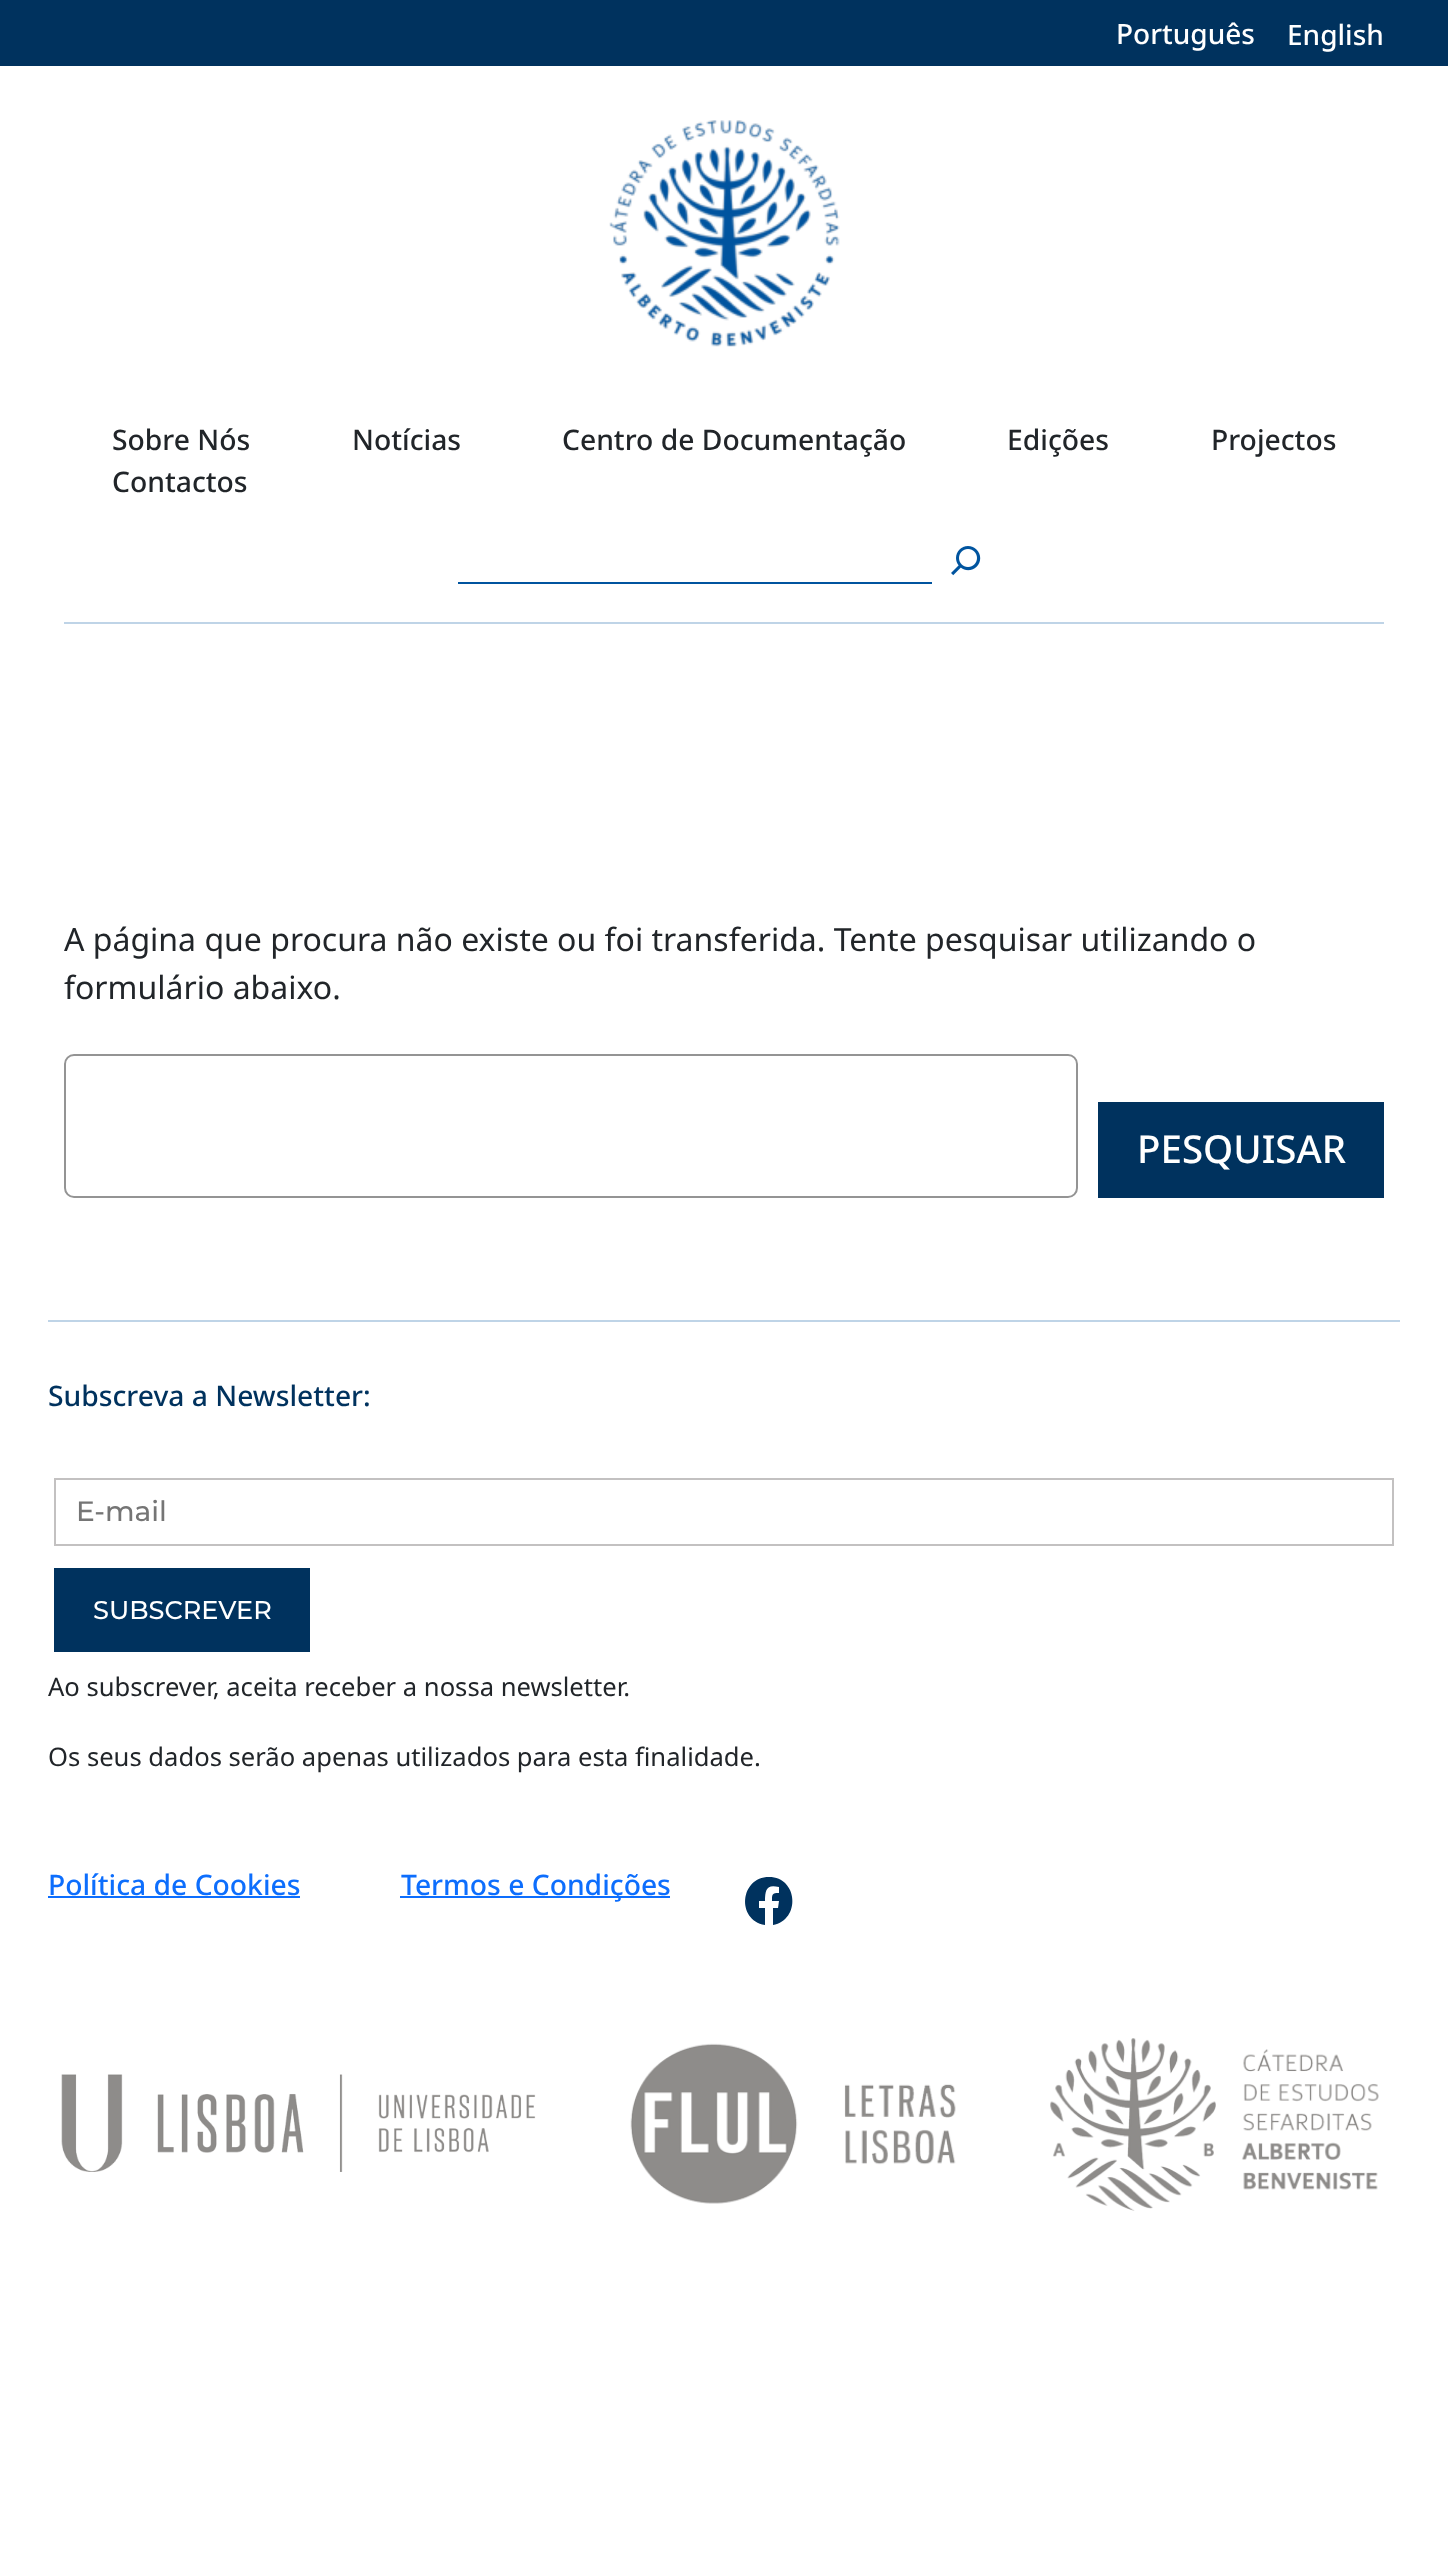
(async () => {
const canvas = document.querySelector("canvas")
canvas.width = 1448
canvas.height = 2564
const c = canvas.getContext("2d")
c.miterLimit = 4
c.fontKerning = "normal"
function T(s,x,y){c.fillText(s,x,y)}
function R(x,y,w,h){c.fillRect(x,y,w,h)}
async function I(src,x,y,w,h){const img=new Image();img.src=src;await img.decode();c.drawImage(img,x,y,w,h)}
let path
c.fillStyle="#fff"
R(0,0,1448,2564)
c.fillStyle="#00325e"
R(0,0,1448,66)
c.font="500 28px Noto Sans"
c.fillStyle="#fff"
T("Português",1116,44)
T("English",1287,45)
await I("1.png",609,120,231,227)
c.font="500 28.25px Noto Sans"
c.fillStyle="#212529"
T("Sobre Nós",112,450)
T("Notícias",352,450)
T("Centro de Documentação",562,450)
T("Edições",1007,450)
T("Projectos",1211,450)
T("Contactos",112,492)
await I("2.png",951,546,30,30)
c.fillStyle="#00549f"
R(458,582,474,2)
c.fillStyle="#bfd4e7"
R(64,622,1320,2)
c.font="32px Noto Sans"
c.fillStyle="#212529"
T("A página que procura não existe ou foi transferida. Tente pesquisar utilizando o",64,951)
T("formulário abaixo.",64,999)
c.beginPath()
c.roundRect(65,1055,1012,142,9)
c.strokeStyle="#949494"
c.lineWidth=2
c.stroke()
c.fillStyle="#00325e"
R(1098,1102,286,96)
c.font="500 38.5px Noto Sans"
c.fillStyle="#fff"
T("PESQUISAR",1137,1163)
c.fillStyle="#bfd4e7"
R(48,1320,1352,2)
c.font="500 28.25px Noto Sans"
c.fillStyle="#00325e"
T("Subscreva a Newsletter:",48,1406)
c.strokeStyle="#c3c1c1"
c.strokeRect(55,1479,1338,66)
c.font="500 28px Montserrat"
c.fillStyle="#757575"
T("E-mail",76,1521)
c.fillStyle="#00325e"
R(54,1568,256,84)
c.font="500 25.6px Montserrat"
c.fillStyle="#fff"
T("SUBSCREVER",93,1619)
c.font="25.6px Noto Sans"
c.fillStyle="#212529"
T("Ao subscrever, aceita receber a nossa newsletter.",48,1696)
T("Os seus dados serão apenas utilizados para esta finalidade.",48,1766)
c.font="500 28.25px Noto Sans"
c.fillStyle="#0d6efd"
T("Política de Cookies",48,1895)
R(48,1896,252,2)
R(400,1896,270,2)
T("Termos e Condições",401,1895)
c.fillStyle="#00325e"
path = new Path2D("M769 1877c-29 0-33 43-4 48v-17h-6v-7h6c0-12 2-17 14-14v6c-7 0-7 1-7 8h7l-1 7h-5v17c28-5 25-48-4-48z")
c.fill(path)
await I("3.png",61,2074,475,98)
await I("4.png",630,2043,326,161)
await I("5.png",1050,2038,329,173)
})()
